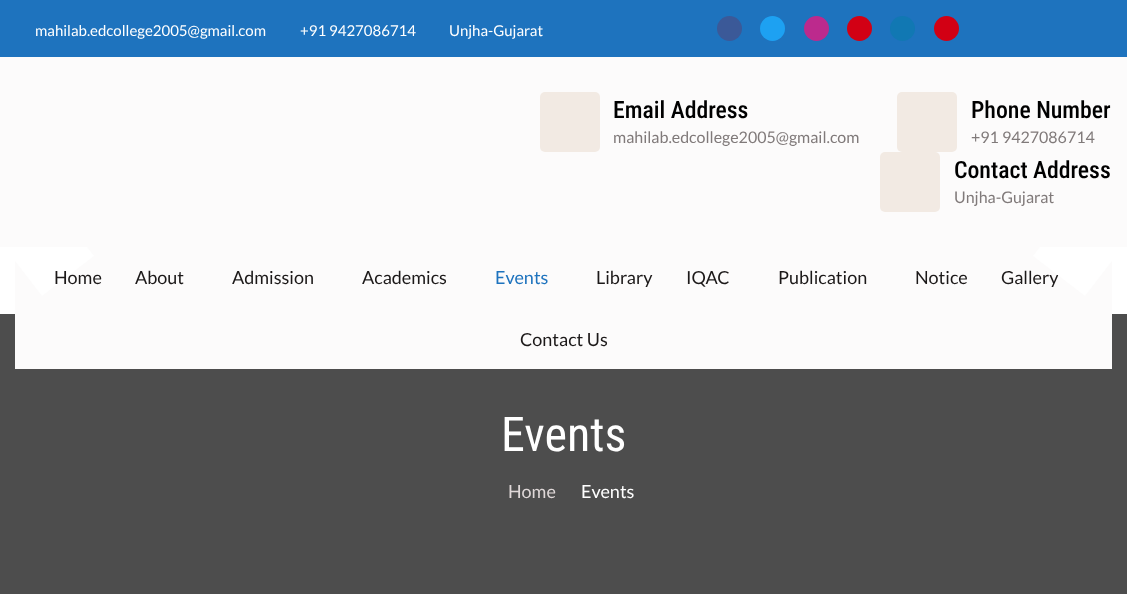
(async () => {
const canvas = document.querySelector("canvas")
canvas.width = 1127
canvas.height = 604
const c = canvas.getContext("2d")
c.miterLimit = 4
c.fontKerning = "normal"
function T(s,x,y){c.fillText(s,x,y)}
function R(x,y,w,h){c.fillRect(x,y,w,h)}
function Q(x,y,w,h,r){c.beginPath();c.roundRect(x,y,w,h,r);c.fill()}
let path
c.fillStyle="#fff"
R(0,0,1127,604)
c.fillStyle="#1e73be"
R(0,0,1127,57)
c.font="15px Lato"
c.fillStyle="#fff"
T("mahilab.edcollege2005@gmail.com",35,36)
T("+91 9427086714",300,36)
T("Unjha-Gujarat",449,36)
c.fillStyle="#3b5998"
c.beginPath()
c.arc(729.5,28.5,12.5,0,7)
c.fill()
c.fillStyle="#1da1f2"
c.beginPath()
c.arc(772.5,28.5,12.5,0,7)
c.fill()
c.fillStyle="#bc2a8d"
c.beginPath()
c.arc(816.5,28.5,12.5,0,7)
c.fill()
c.fillStyle="#d20014"
c.beginPath()
c.arc(859.5,28.5,12.5,0,7)
c.fill()
c.fillStyle="#1178b3"
c.beginPath()
c.arc(902.5,28.5,12.5,0,7)
c.fill()
c.fillStyle="#d20014"
c.beginPath()
c.arc(946.5,28.5,12.5,0,7)
c.fill()
c.fillStyle="#4d4d4d"
R(0,314,1127,280)
c.fillStyle="#fcfbfb"
R(15,247,1097,122)
c.fillStyle="#fff"
path = new Path2D("M2 244l52-40l40 52l-52 40z")
c.fill(path)
c.font="18px Lato"
c.fillStyle="#1c1919"
T("Gallery",1001,284)
c.fillStyle="#fff"
path = new Path2D("M1073 204l52 40l-40 52l-52-40z")
c.fill(path)
c.fillStyle="#fcfbfb"
R(0,57,1127,190)
c.fillStyle="#f2eae3"
Q(540,92,60,60,5)
c.font="500 23.75px Roboto Condensed"
c.fillStyle="#000"
T("Email Address",613,118)
c.font="16px Lato"
c.fillStyle="#807a7a"
T("mahilab.edcollege2005@gmail.com",613,143)
c.fillStyle="#f2eae3"
Q(897,92,60,60,5)
c.font="500 23.75px Roboto Condensed"
c.fillStyle="#000"
T("Phone Number",971,118)
c.font="16px Lato"
c.fillStyle="#807a7a"
T("+91 9427086714",971,143)
c.fillStyle="#f2eae3"
Q(880,152,60,60,5)
c.font="500 23.75px Roboto Condensed"
c.fillStyle="#000"
T("Contact Address",954,178)
c.font="16px Lato"
c.fillStyle="#807a7a"
T("Unjha-Gujarat",954,203)
c.font="18px Lato"
c.fillStyle="#1c1919"
T("Home",54,284)
T("About",135,284)
T("Admission",232,284)
T("Academics",362,284)
c.fillStyle="#1e73be"
T("Events",495,284)
c.fillStyle="#1c1919"
T("Library",596,284)
T("IQAC",686,284)
T("Publication",778,284)
T("Notice",915,284)
T("Contact Us",520,346)
c.font="48px Roboto Condensed"
c.fillStyle="#fff"
T("Events",501,451)
c.font="18px Lato"
c.fillStyle="#dfd8d8"
T("Home",508,498)
c.fillStyle="#fff"
T("Events",581,498)
})()
